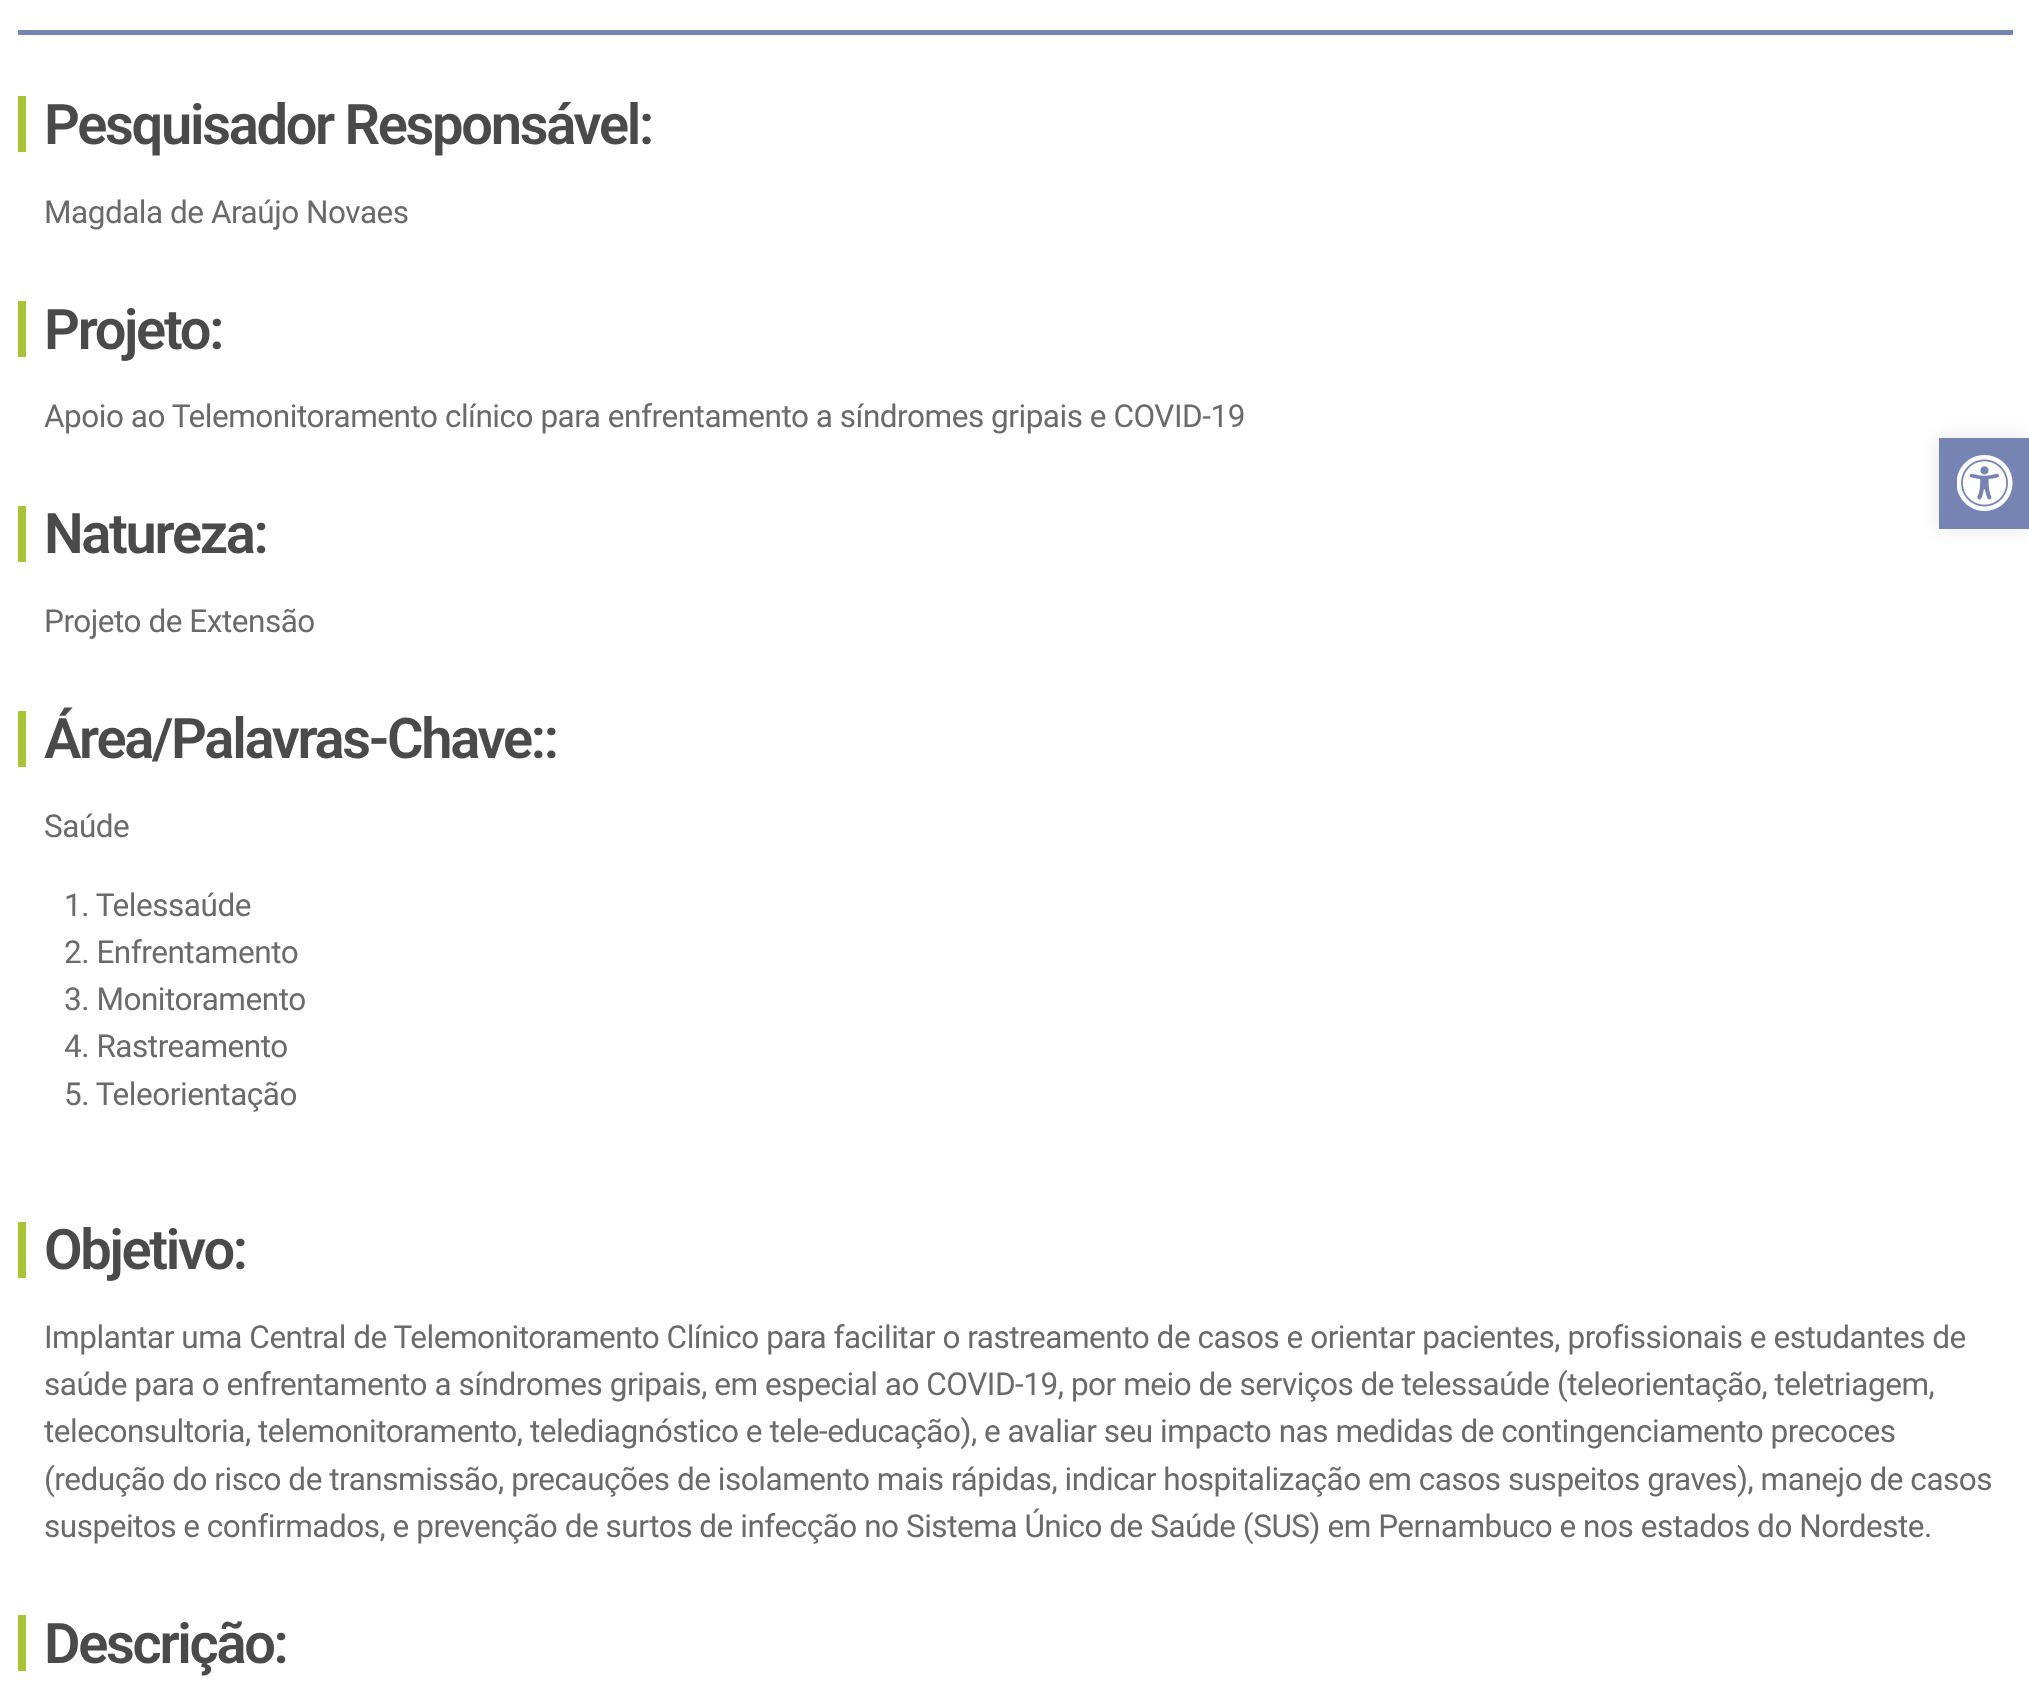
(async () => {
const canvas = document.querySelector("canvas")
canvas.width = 2029
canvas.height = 1700
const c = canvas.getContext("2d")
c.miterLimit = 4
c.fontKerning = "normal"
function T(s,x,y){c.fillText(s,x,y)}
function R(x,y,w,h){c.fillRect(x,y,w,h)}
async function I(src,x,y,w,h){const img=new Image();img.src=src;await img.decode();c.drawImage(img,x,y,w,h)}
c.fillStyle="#fff"
R(0,0,2029,1700)
c.fillStyle="#7684b4"
R(18,30,1995,5)
c.fillStyle="#a8c436"
R(18,96,8,56)
c.letterSpacing="-2.3px"
c.font="600 56px Roboto"
c.fillStyle="#4a4a4a"
T("Pesquisador Responsável:",44,144)
c.letterSpacing="-0.47px"
c.font="31.5px Roboto"
c.fillStyle="#6a6a6a"
T("Magdala de Araújo Novaes",44,223)
c.fillStyle="#a8c436"
R(18,301,8,56)
c.letterSpacing="-2.3px"
c.font="600 56px Roboto"
c.fillStyle="#4a4a4a"
T("Projeto:",44,349)
c.letterSpacing="-0.47px"
c.font="31.5px Roboto"
c.fillStyle="#6a6a6a"
T("Apoio ao Telemonitoramento clínico para enfrentamento a síndromes gripais e COVID-19",44,427)
c.fillStyle="#a8c436"
R(18,506,8,56)
c.letterSpacing="-2.3px"
c.font="600 56px Roboto"
c.fillStyle="#4a4a4a"
T("Natureza:",44,553)
c.letterSpacing="-0.47px"
c.font="31.5px Roboto"
c.fillStyle="#6a6a6a"
T("Projeto de Extensão",44,632)
c.fillStyle="#a8c436"
R(18,711,8,56)
c.letterSpacing="-2.3px"
c.font="600 56px Roboto"
c.fillStyle="#4a4a4a"
T("Área/Palavras-Chave::",44,758)
c.letterSpacing="-0.47px"
c.font="31.5px Roboto"
c.fillStyle="#6a6a6a"
T("Saúde",44,837)
T("1. Telessaúde",64,916)
T("2. Enfrentamento",64,963)
T("3. Monitoramento",64,1010)
T("4. Rastreamento",64,1057)
T("5. Teleorientação",64,1105)
c.fillStyle="#a8c436"
R(18,1222,8,56)
c.letterSpacing="-2.3px"
c.font="600 56px Roboto"
c.fillStyle="#4a4a4a"
T("Objetivo:",44,1269)
c.letterSpacing="-0.47px"
c.font="31.5px Roboto"
c.fillStyle="#6a6a6a"
T("Implantar uma Central de Telemonitoramento Clínico para facilitar o rastreamento de casos e orientar pacientes, profissionais e estudantes de",44,1348)
T("saúde para o enfrentamento a síndromes gripais, em especial ao COVID-19, por meio de serviços de telessaúde (teleorientação, teletriagem,",44,1395)
T("teleconsultoria, telemonitoramento, telediagnóstico e tele-educação), e avaliar seu impacto nas medidas de contingenciamento precoces",44,1442)
T("(redução do risco de transmissão, precauções de isolamento mais rápidas, indicar hospitalização em casos suspeitos graves), manejo de casos",44,1490)
T("suspeitos e confirmados, e prevenção de surtos de infecção no Sistema Único de Saúde (SUS) em Pernambuco e nos estados do Nordeste.",44,1537)
c.fillStyle="#a8c436"
R(18,1615,8,56)
c.letterSpacing="-2.3px"
c.font="600 56px Roboto"
c.fillStyle="#4a4a4a"
T("Descrição:",44,1663)
c.fillStyle="#0000001a"
c.filter="blur(9px)"
c.beginPath()
c.rect(1939,438,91,91)
c.fill()
c.filter="none"
c.fillStyle="#7684b4"
R(1939,438,90,91)
await I("1.png",1957,455,56,56)
})()
